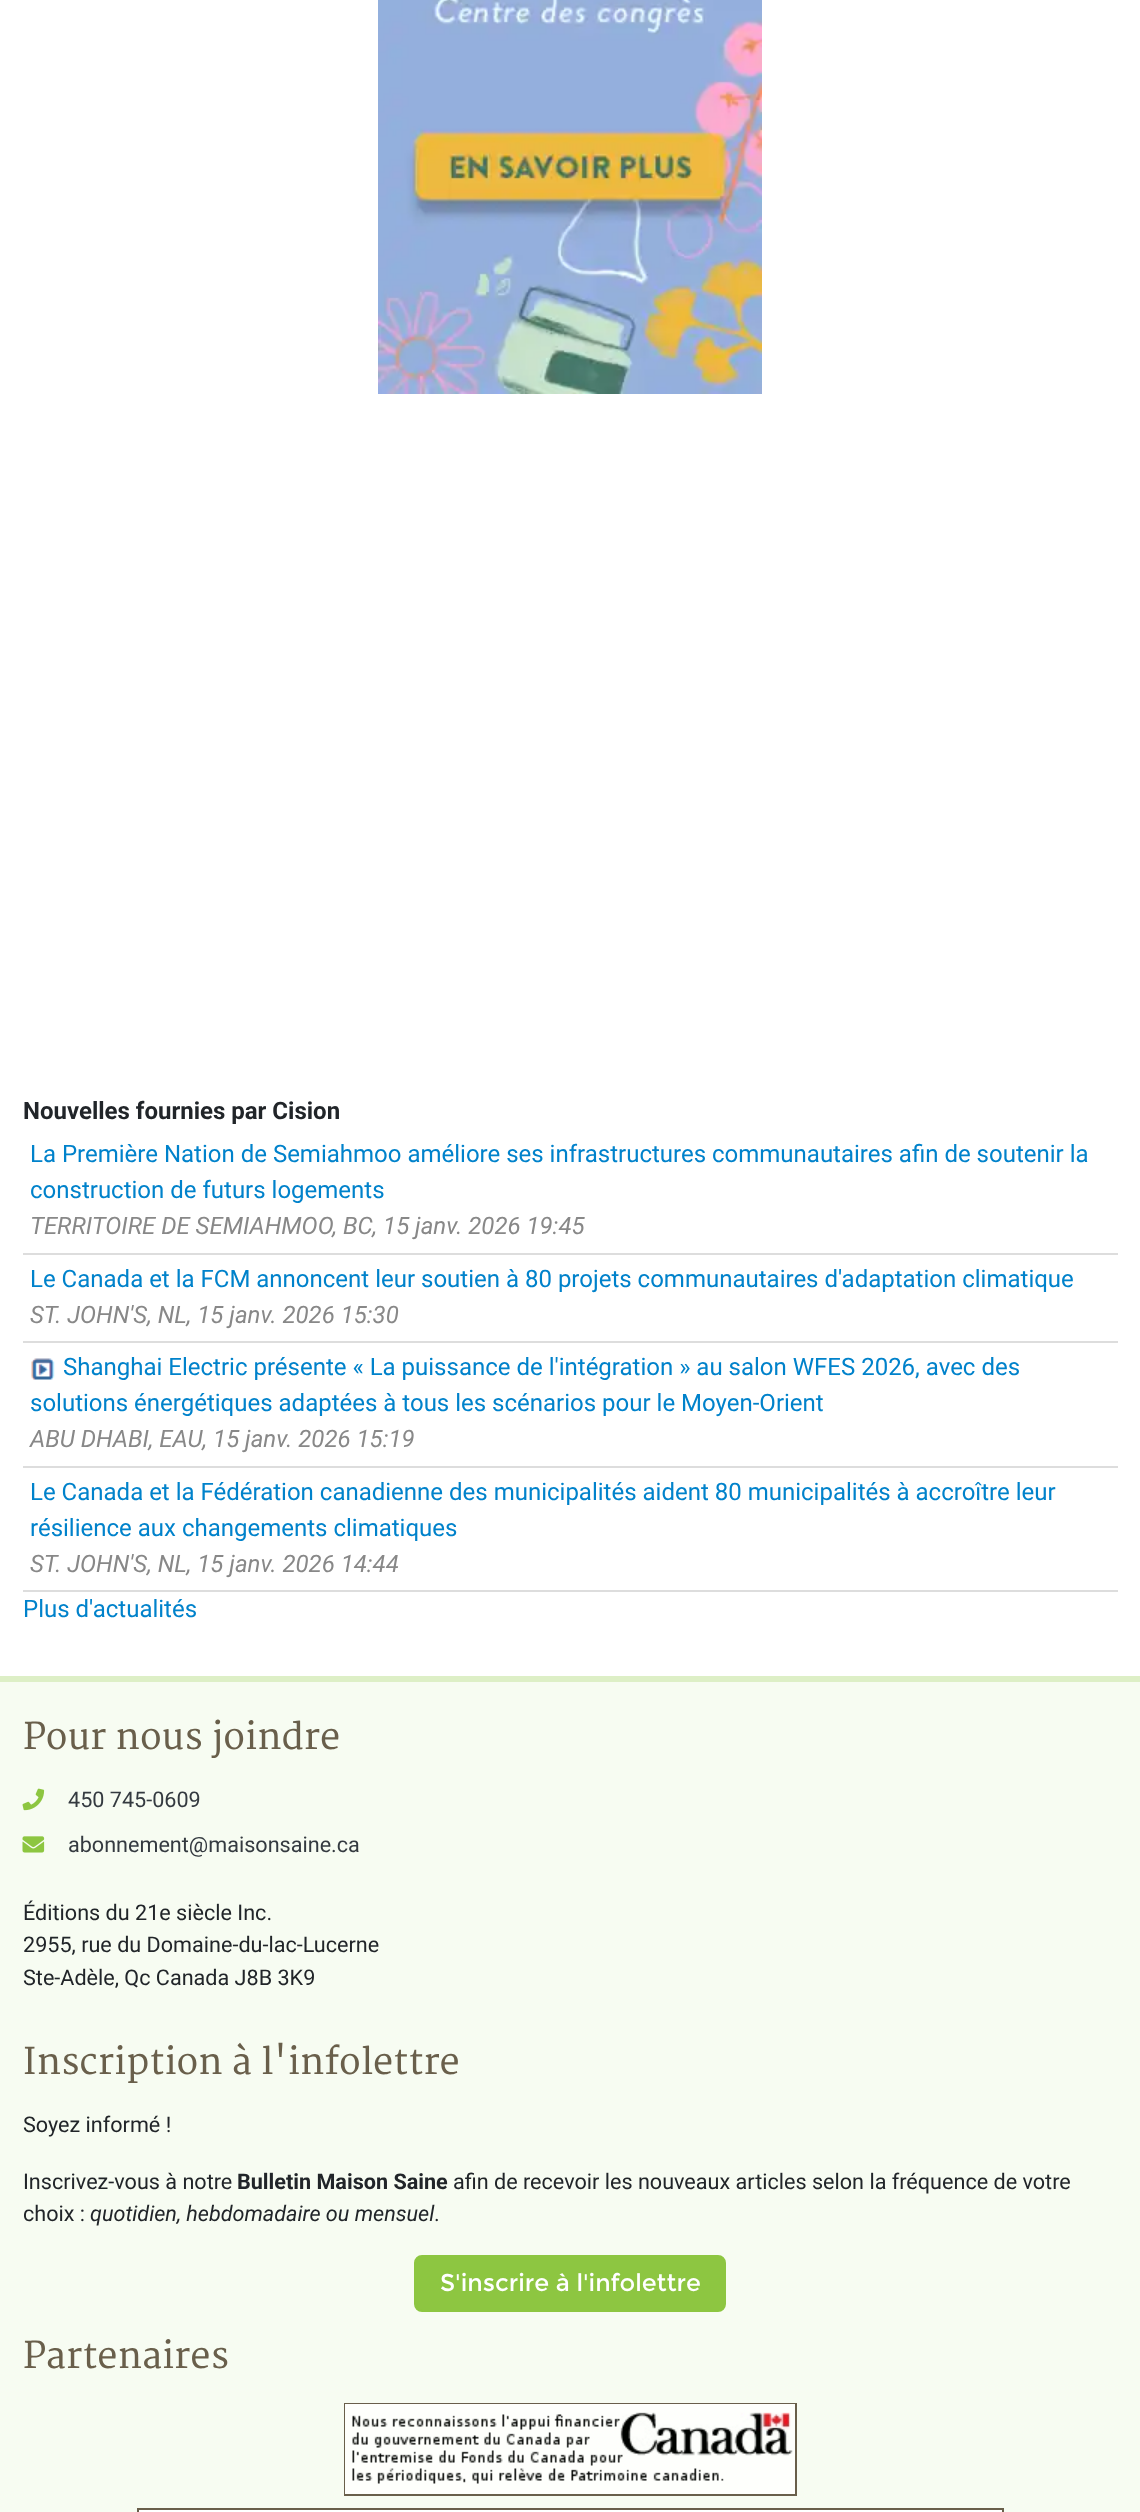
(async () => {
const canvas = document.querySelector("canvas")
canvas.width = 1140
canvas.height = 2512
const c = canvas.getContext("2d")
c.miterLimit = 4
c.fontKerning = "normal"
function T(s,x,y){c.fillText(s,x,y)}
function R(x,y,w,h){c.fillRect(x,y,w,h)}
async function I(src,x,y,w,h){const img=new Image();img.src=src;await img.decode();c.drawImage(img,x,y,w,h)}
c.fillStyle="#fff"
R(0,0,1140,2512)
await I("1.png",378,0,384,394)
c.font="bold 24px Roboto"
c.fillStyle="#212529"
T("Nouvelles fournies par Cision",23,1119)
c.fillStyle="#ddd"
R(23,1253,1095,2)
c.font="24px Roboto"
c.fillStyle="#0082cb"
T("La Première Nation de Semiahmoo améliore ses infrastructures communautaires afin de soutenir la",30,1162)
T("construction de futurs logements",30,1198)
c.font="italic 24px Roboto"
c.fillStyle="#888"
T("TERRITOIRE DE SEMIAHMOO, BC, 15 janv. 2026 19:45",30,1234)
c.fillStyle="#ddd"
R(23,1341,1095,2)
c.font="24px Roboto"
c.fillStyle="#0082cb"
T("Le Canada et la FCM annoncent leur soutien à 80 projets communautaires d'adaptation climatique",30,1287)
c.font="italic 24px Roboto"
c.fillStyle="#888"
T("ST. JOHN'S, NL, 15 janv. 2026 15:30",30,1323)
c.fillStyle="#ddd"
R(23,1466,1095,2)
await I("2.png",31,1358,24,22)
c.font="24px Roboto"
c.fillStyle="#0082cb"
T("Shanghai Electric présente « La puissance de l'intégration » au salon WFES 2026, avec des",63,1375)
T("solutions énergétiques adaptées à tous les scénarios pour le Moyen-Orient",30,1411)
c.font="italic 24px Roboto"
c.fillStyle="#888"
T("ABU DHABI, EAU, 15 janv. 2026 15:19",30,1447)
c.fillStyle="#ddd"
R(23,1590,1095,2)
c.font="24px Roboto"
c.fillStyle="#0082cb"
T("Le Canada et la Fédération canadienne des municipalités aident 80 municipalités à accroître leur",30,1500)
T("résilience aux changements climatiques",30,1536)
c.font="italic 24px Roboto"
c.fillStyle="#888"
T("ST. JOHN'S, NL, 15 janv. 2026 14:44",30,1572)
c.font="24px Roboto"
c.fillStyle="#0082cb"
T("Plus d'actualités",23,1617)
c.fillStyle="#f7fcf2"
R(0,1682,1140,830)
c.fillStyle="#ddefc6"
R(0,1676,1140,6)
c.font="36px Merriweather"
c.fillStyle="#695f4b"
T("Pour nous joindre",23,1749)
await I("3.png",22,1788,23,23)
c.font="21.6px Roboto"
c.fillStyle="#343a40"
T("450 745-0609",68,1807)
await I("4.png",22,1836,23,17)
T("abonnement@maisonsaine.ca",68,1852)
c.fillStyle="#212529"
T("Éditions du 21e siècle Inc.",23,1920)
T("2955, rue du Domaine-du-lac-Lucerne",23,1952)
T("Ste-Adèle, Qc Canada J8B 3K9",23,1985)
c.font="36px Merriweather"
c.fillStyle="#695f4b"
T("Inscription à l'infolettre",23,2074)
c.font="21.6px Roboto"
c.fillStyle="#212529"
T("Soyez informé !",23,2132)
T("Inscrivez-vous à notre",23,2189)
c.font="bold 21.6px Roboto"
T("Bulletin Maison Saine",237,2189)
c.font="21.6px Roboto"
T("afin de recevoir les nouveaux articles selon la fréquence de votre",453,2189)
T("choix :",23,2221)
c.font="italic 21.6px Roboto"
T("quotidien, hebdomadaire ou mensuel",90,2221)
c.font="21.6px Roboto"
T(".",434,2221)
c.fillStyle="#8dc641"
c.beginPath()
c.roundRect(415,2256,310,55,7)
c.fill()
c.strokeStyle="#8dc641"
c.lineWidth=2
c.stroke()
c.font="24px Montserrat"
c.fillStyle="#fff"
T("S'inscrire à l'infolettre",440,2291)
c.font="36px Merriweather"
c.fillStyle="#695f4b"
T("Partenaires",23,2368)
c.strokeStyle="#695f4b"
c.strokeRect(345,2404,451,91)
await I("5.png",345,2404,450,90)
c.fillStyle="#fff"
c.beginPath()
c.rect(138,2509,865,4)
c.fill()
c.stroke()
})()
